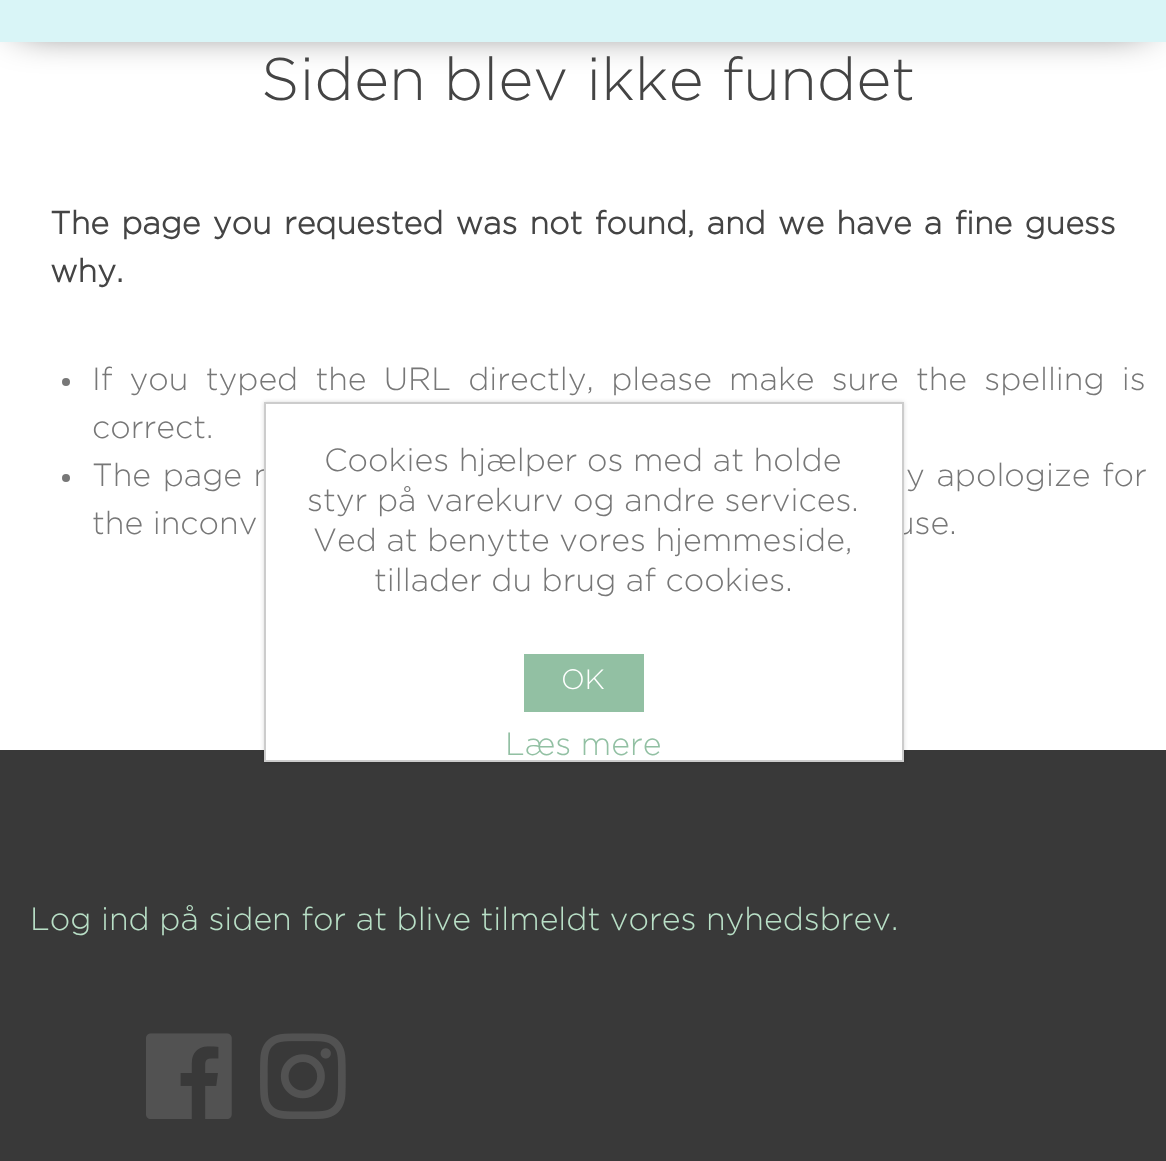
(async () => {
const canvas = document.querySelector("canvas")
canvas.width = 1166
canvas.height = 1161
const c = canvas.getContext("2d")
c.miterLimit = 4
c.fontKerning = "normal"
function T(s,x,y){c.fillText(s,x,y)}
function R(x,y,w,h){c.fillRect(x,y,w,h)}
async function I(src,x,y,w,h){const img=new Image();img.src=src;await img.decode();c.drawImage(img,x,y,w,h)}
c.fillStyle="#fff"
R(0,0,1166,1161)
c.fillStyle="#000"
c.filter="blur(22px)"
c.beginPath()
c.rect(20,-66,1126,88)
c.fill()
c.filter="none"
c.fillStyle="#d9f5f7"
R(0,0,1166,42)
c.font="300 60px Gotham"
c.fillStyle="#444"
T("Siden blev ikke fundet",261,100)
c.wordSpacing="2.6px"
c.font="bold 32px Gotham"
T("The page you requested was not found, and we have a fine guess",50,234)
c.wordSpacing="0px"
T("why.",50,282)
c.fillStyle="#777"
c.beginPath()
c.arc(66,382,4,0,7)
c.fill()
c.wordSpacing="7.6px"
c.font="300 32px Gotham"
T("If you typed the URL directly, please make sure the spelling is",92,390)
c.wordSpacing="0px"
T("correct.",92,438)
c.beginPath()
c.arc(66,478,4,0,7)
c.fill()
c.wordSpacing="2px"
T("The page n",92,486)
T("y apologize for",906,486)
c.wordSpacing="0px"
T("the inconv",92,534)
T("use.",895,534)
c.fillStyle="#393939"
R(0,750,1166,411)
c.fillStyle="#b9e0c7"
T("Log ind på siden for at blive tilmeldt vores nyhedsbrev.",30,930)
await I("1.png",146,1033,86,86)
await I("2.png",260,1033,86,86)
c.fillStyle="#00000026"
c.filter="blur(2px)"
c.beginPath()
c.rect(264,402,640,360)
c.fill()
c.filter="none"
c.fillStyle="#fff"
c.beginPath()
c.rect(265,403,638,358)
c.fill()
c.strokeStyle="#ccc"
c.lineWidth=2
c.stroke()
c.fillStyle="#777"
T("Cookies hjælper os med at holde",324,471)
T("styr på varekurv og andre services.",307,511)
T("Ved at benytte vores hjemmeside,",313,551)
T("tillader du brug af cookies.",374,591)
c.fillStyle="#92c0a3"
R(524,654,120,58)
c.font="300 28px Gotham"
c.fillStyle="#fff"
T("OK",561,689)
c.font="300 32px Gotham"
c.fillStyle="#92c0a3"
T("Læs mere",505,755)
})()
